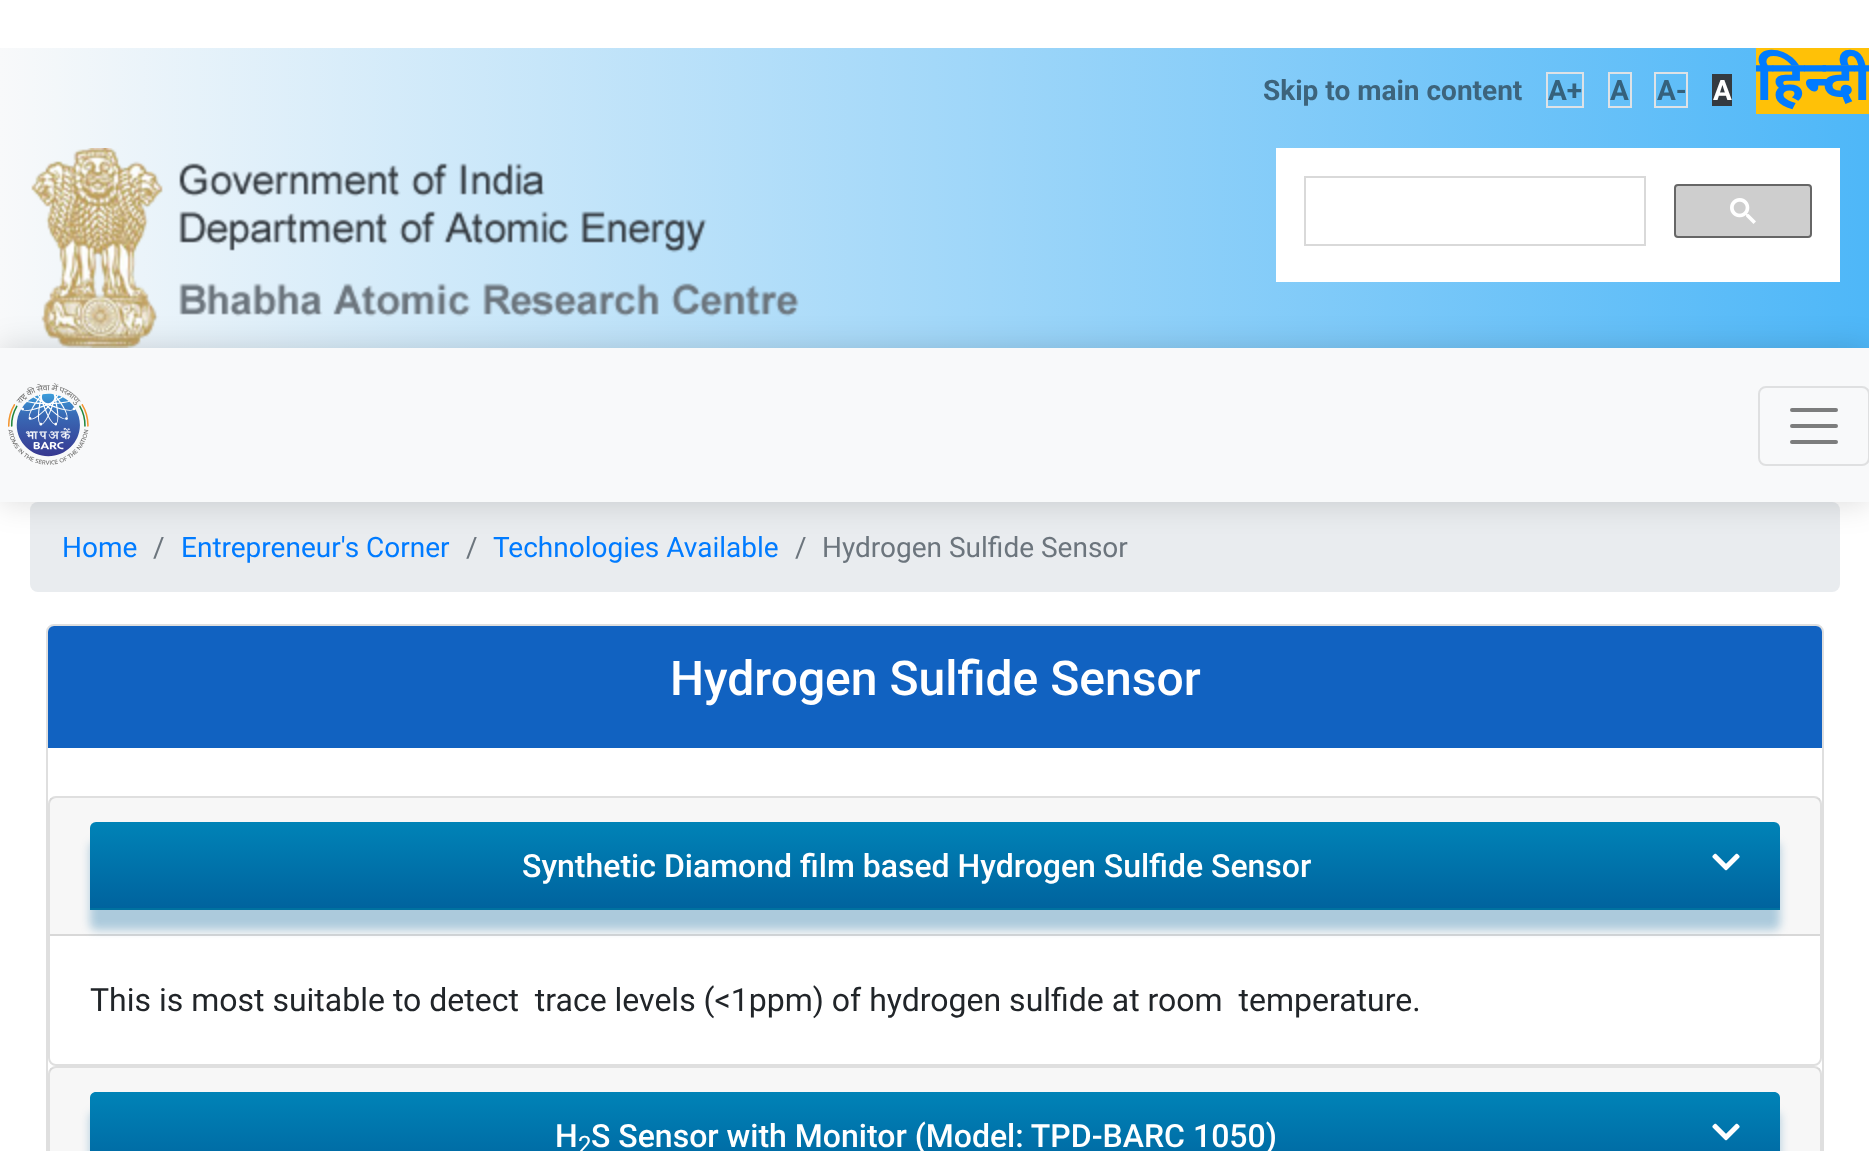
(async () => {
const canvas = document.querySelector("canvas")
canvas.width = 1869
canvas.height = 1151
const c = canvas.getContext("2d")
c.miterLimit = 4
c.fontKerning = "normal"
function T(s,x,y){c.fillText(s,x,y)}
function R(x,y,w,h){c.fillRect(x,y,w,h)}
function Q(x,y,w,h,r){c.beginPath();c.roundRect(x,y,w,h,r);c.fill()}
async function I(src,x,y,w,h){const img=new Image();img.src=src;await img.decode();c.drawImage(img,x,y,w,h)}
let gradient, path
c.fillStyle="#fff"
R(0,0,1869,1151)
gradient = c.createLinearGradient(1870,98,0,98)
gradient.addColorStop(0,"#4eb7f8")
gradient.addColorStop(1,"#f8f9fa")
c.fillStyle = gradient
R(0,48,1869,100)
c.font="bold 28px Roboto"
c.fillStyle="#3d647c"
T("Skip to main content",1263,100)
c.strokeStyle="#dee2e6"
c.lineWidth=2
c.strokeRect(1547,73,36,34)
c.fillStyle="#35617c"
T("A+",1548,100)
c.strokeRect(1609,73,22,34)
T("A",1610,100)
c.strokeRect(1655,73,32,34)
T("A-",1657,100)
c.fillStyle="#343a40"
R(1712,74,20,32)
c.fillStyle="#fff"
T("A",1713,100)
c.fillStyle="#ffc107"
R(1756,48,113,66)
c.font="bold 56px Noto Sans"
c.fillStyle="#007bff"
T("हिन्दी",1756,100)
gradient = c.createLinearGradient(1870,248,0,248)
gradient.addColorStop(0,"#4eb7f8")
gradient.addColorStop(1,"#f8f9fa")
c.fillStyle = gradient
R(0,148,1869,200)
await I("1.png",31,148,768,200)
c.fillStyle="#fff"
R(1276,148,564,134)
c.strokeStyle="#d9d9d9"
c.strokeRect(1305,177,340,68)
c.fillStyle="#cecece"
c.beginPath()
c.roundRect(1675,185,136,52,3)
c.fill()
c.strokeStyle="#666"
c.stroke()
await I("2.png",1730,198,26,26)
c.fillStyle="#e9ecef"
Q(30,502,1810,90,8)
c.fillStyle="#00000026"
c.filter="blur(16px)"
c.beginPath()
c.rect(0,348,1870,154)
c.fill()
c.filter="none"
c.fillStyle="#f8f9fa"
R(0,348,1869,154)
await I("3.png",8,383,81,82)
c.beginPath()
c.roundRect(1759,387,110,78,7)
c.strokeStyle="#dfe0e1"
c.stroke()
path = new Path2D("M1792 410h44m-44 16h44m-44 16h44")
c.strokeStyle="#7c7d7d"
c.lineWidth=4
c.lineCap="round"
c.stroke(path)
c.font="28px Roboto"
c.fillStyle="#007bff"
T("Home",62,557)
c.fillStyle="#6c757d"
T("/",153,557)
c.fillStyle="#007bff"
T("Entrepreneur's Corner",181,557)
c.fillStyle="#6c757d"
T("/",466,557)
c.fillStyle="#007bff"
T("Technologies Available",493,557)
c.fillStyle="#6c757d"
T("/",795,557)
T("Hydrogen Sulfide Sensor",822,557)
c.beginPath()
c.roundRect(47,625,1776,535,7)
c.strokeStyle="#dfdfdf"
c.lineWidth=2
c.stroke()
c.fillStyle="#1162c1"
c.beginPath()
c.roundRect(48,626,1774,122,[6,6,0,0])
c.fill()
c.font="500 48px Roboto"
c.fillStyle="#fff"
T("Hydrogen Sulfide Sensor",670,695)
c.beginPath()
c.roundRect(49,797,1772,268,7)
c.stroke()
c.fillStyle="#00000008"
R(50,798,1770,136)
c.fillStyle="#d8d8d8"
R(50,934,1770,2)
c.fillStyle="#00639e4d"
c.filter="blur(5px)"
c.beginPath()
c.roundRect(90,842,1690,88,6)
c.fill()
c.filter="none"
gradient = c.createLinearGradient(935,822,935,908)
gradient.addColorStop(0,"#0083b7")
gradient.addColorStop(1,"#00639e")
c.fillStyle = gradient
c.beginPath()
c.roundRect(90,822,1690,86,[6,6,0,0])
c.fill()
c.fillStyle="#0072a0"
R(90,908,1690,2)
c.font="500 32px Roboto"
c.fillStyle="#fff"
T("Synthetic Diamond film based Hydrogen Sulfide Sensor",522,877)
await I("4.png",1712,853,28,18)
c.font="32px Roboto"
c.fillStyle="#212529"
T("This is most suitable to detect  trace levels (<1ppm) of hydrogen sulfide at room  temperature.",90,1011)
c.beginPath()
c.roundRect(49,1067,1772,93,7)
c.stroke()
c.fillStyle="#00000008"
R(50,1068,1770,83)
c.fillStyle="#00639e4d"
c.filter="blur(5px)"
c.beginPath()
c.roundRect(90,1112,1690,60,6)
c.fill()
c.filter="none"
gradient = c.createLinearGradient(935,1092,935,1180)
gradient.addColorStop(0,"#0083b7")
gradient.addColorStop(1,"#00639e")
c.fillStyle = gradient
path = new Path2D("M96 1092h1678c3.5 0 6 2.5 6 6v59h-1690v-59c0-3.5 2.5-6 6-6z")
c.fill(path)
c.font="500 32px Roboto"
c.fillStyle="#fff"
T("H",555,1147)
c.font="24px Roboto"
T("2",578,1153)
c.font="500 32px Roboto"
T("S Sensor with Monitor (Model: TPD-BARC 1050)",591,1147)
await I("5.png",1712,1123,28,18)
})()
